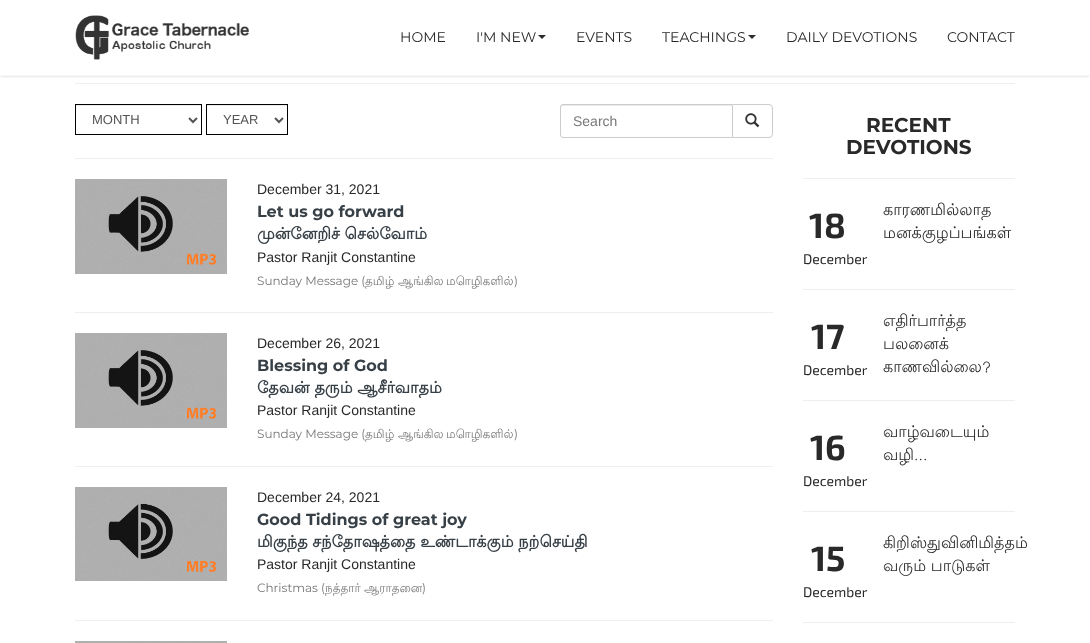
(async () => {
const canvas = document.querySelector("canvas")
canvas.width = 1090
canvas.height = 643
const c = canvas.getContext("2d")
c.miterLimit = 4
c.fontKerning = "normal"
function T(s,x,y){c.fillText(s,x,y)}
function R(x,y,w,h){c.fillRect(x,y,w,h)}
async function I(src,x,y,w,h){const img=new Image();img.src=src;await img.decode();c.drawImage(img,x,y,w,h)}
let path
c.fillStyle="#fff"
R(0,0,1090,643)
c.fillStyle="#0000001a"
c.filter="blur(1px)"
c.beginPath()
c.rect(1,3,1088,74)
c.fill()
c.filter="none"
c.fillStyle="#fff"
R(0,2,1090,73)
c.fillStyle="#f7f7f7"
R(0,75,1090,1)
await I("1.png",75,15,174,45)
c.font="14px Montserrat"
c.fillStyle="#292929"
T("HOME",400,42)
T("I'M NEW",476,42)
c.fillStyle="#2c2c2a"
path = new Path2D("M538 35h8l-4 4z")
c.fill(path)
c.fillStyle="#292929"
T("EVENTS",576,42)
T("TEACHINGS",662,42)
c.fillStyle="#2c2c2a"
path = new Path2D("M748 35h8l-4 4z")
c.fill(path)
c.fillStyle="#292929"
T("DAILY DEVOTIONS",786,42)
T("CONTACT",947,42)
c.fillStyle="#eee"
R(75,83,940,1)
c.fillStyle="#ececec"
R(76,105,125,1)
c.strokeStyle="#000"
c.strokeRect(75.5,104.5,126,30)
path = new Path2D("M189 118l4 4l4-4")
c.strokeStyle="#555"
c.lineWidth=2
c.stroke(path)
c.font="13px Liberation Sans"
c.fillStyle="#555"
T("MONTH",92,124)
c.fillStyle="#ececec"
R(207,105,80,1)
c.strokeStyle="#000"
c.lineWidth=1
c.strokeRect(206.5,104.5,81,30)
path = new Path2D("M275 118l4 4l4-4")
c.strokeStyle="#555"
c.lineWidth=2
c.stroke(path)
c.fillStyle="#555"
T("YEAR",223,124)
c.beginPath()
c.roundRect(732.5,104.5,40,33,[0,3.5,3.5,0])
c.strokeStyle="#ccc"
c.lineWidth=1
c.stroke()
c.fillStyle="#fff"
c.beginPath()
c.roundRect(560,104,173,34,[3,0,0,3])
c.fill()
c.fillStyle="#ececec"
path = new Path2D("M563 106h169v-1h-170c-1 1-1 2-1 3c0-1 1-2 2-2z")
c.fill(path)
c.beginPath()
c.roundRect(560.5,104.5,172,33,[2.5,0,0,2.5])
c.stroke()
c.font="14px Liberation Sans"
c.fillStyle="#777"
T("Search",573,126)
await I("2.png",745,113,15,15)
c.fillStyle="#eee"
R(75,158,698,1)
await I("3.png",75,179,152,95)
c.fillStyle="#292929"
T("December 31, 2021",257,194)
c.font="bold 16px Montserrat"
c.fillStyle="#384047"
T("Let us go forward",257,217)
c.font="bold 16px Lohit Tamil"
T("முன்னேறிச் செல்வோம்",257,239)
c.font="14px Liberation Sans"
c.fillStyle="#292929"
T("Pastor Ranjit Constantine",257,262)
c.font="12px Montserrat"
c.fillStyle="#777"
T("Sunday Message (",257,285)
c.font="12px Lohit Tamil"
T("தமிழ்",365,285)
T("ஆங்கில",398,285)
T("மொழிகளில்",446,285)
c.font="12px Montserrat"
T(")",514,285)
c.fillStyle="#eee"
R(75,312,698,1)
await I("4.png",75,333,152,95)
c.font="14px Liberation Sans"
c.fillStyle="#292929"
T("December 26, 2021",257,348)
c.font="bold 16px Montserrat"
c.fillStyle="#384047"
T("Blessing of God",257,371)
c.font="bold 16px Lohit Tamil"
T("தேவன் தரும் ஆசீர்வாதம்",257,393)
c.font="14px Liberation Sans"
c.fillStyle="#292929"
T("Pastor Ranjit Constantine",257,415)
c.font="12px Montserrat"
c.fillStyle="#777"
T("Sunday Message (",257,438)
c.font="12px Lohit Tamil"
T("தமிழ்",365,438)
T("ஆங்கில",398,438)
T("மொழிகளில்",446,438)
c.font="12px Montserrat"
T(")",514,438)
c.fillStyle="#eee"
R(75,466,698,1)
await I("5.png",75,487,152,94)
c.font="14px Liberation Sans"
c.fillStyle="#292929"
T("December 24, 2021",257,502)
c.font="bold 16px Montserrat"
c.fillStyle="#384047"
T("Good Tidings of great joy",257,525)
c.font="bold 16px Lohit Tamil"
T("மிகுந்த சந்தோஷத்தை உண்டாக்கும் நற்செய்தி",257,547)
c.font="14px Liberation Sans"
c.fillStyle="#292929"
T("Pastor Ranjit Constantine",257,569)
c.font="12px Montserrat"
c.fillStyle="#777"
T("Christmas (",257,592)
c.font="12px Lohit Tamil"
T("நத்தார்",325,592)
T("ஆராதனை",364,592)
c.font="12px Montserrat"
T(")",422,592)
c.fillStyle="#eee"
R(75,620,698,1)
await I("6.png",75,641,152,2)
c.font="bold 20px Montserrat"
c.fillStyle="#292929"
T("RECENT",866,132)
T("DEVOTIONS",846,154)
c.fillStyle="#eee"
R(803,178,212,1)
c.font="bold 35px 'Exo 2'"
c.fillStyle="#292929"
T("18",809,238)
c.font="14px 'Exo 2'"
T("December",803,264)
c.font="16px Lohit Tamil"
T("காரணமில்லாத",883,215)
T("மனக்குழப்பங்கள்",883,238)
c.fillStyle="#eee"
R(803,289,212,1)
c.font="bold 35px 'Exo 2'"
c.fillStyle="#292929"
T("17",811,349)
c.font="14px 'Exo 2'"
T("December",803,375)
c.font="16px Lohit Tamil"
T("எதிர்பார்த்த",883,326)
T("பலனைக்",883,349)
T("காணவில்லை?",883,372)
c.fillStyle="#eee"
R(803,400,212,1)
c.font="bold 35px 'Exo 2'"
c.fillStyle="#292929"
T("16",810,460)
c.font="14px 'Exo 2'"
T("December",803,486)
c.font="16px Lohit Tamil"
T("வாழ்வடையும்",883,437)
T("வழி...",883,460)
c.fillStyle="#eee"
R(803,511,212,1)
c.font="bold 35px 'Exo 2'"
c.fillStyle="#292929"
T("15",811,571)
c.font="14px 'Exo 2'"
T("December",803,597)
c.font="16px Lohit Tamil"
T("கிறிஸ்துவினிமித்தம்",883,548)
T("வரும் பாடுகள்",883,571)
c.fillStyle="#eee"
R(803,622,212,1)
})()
